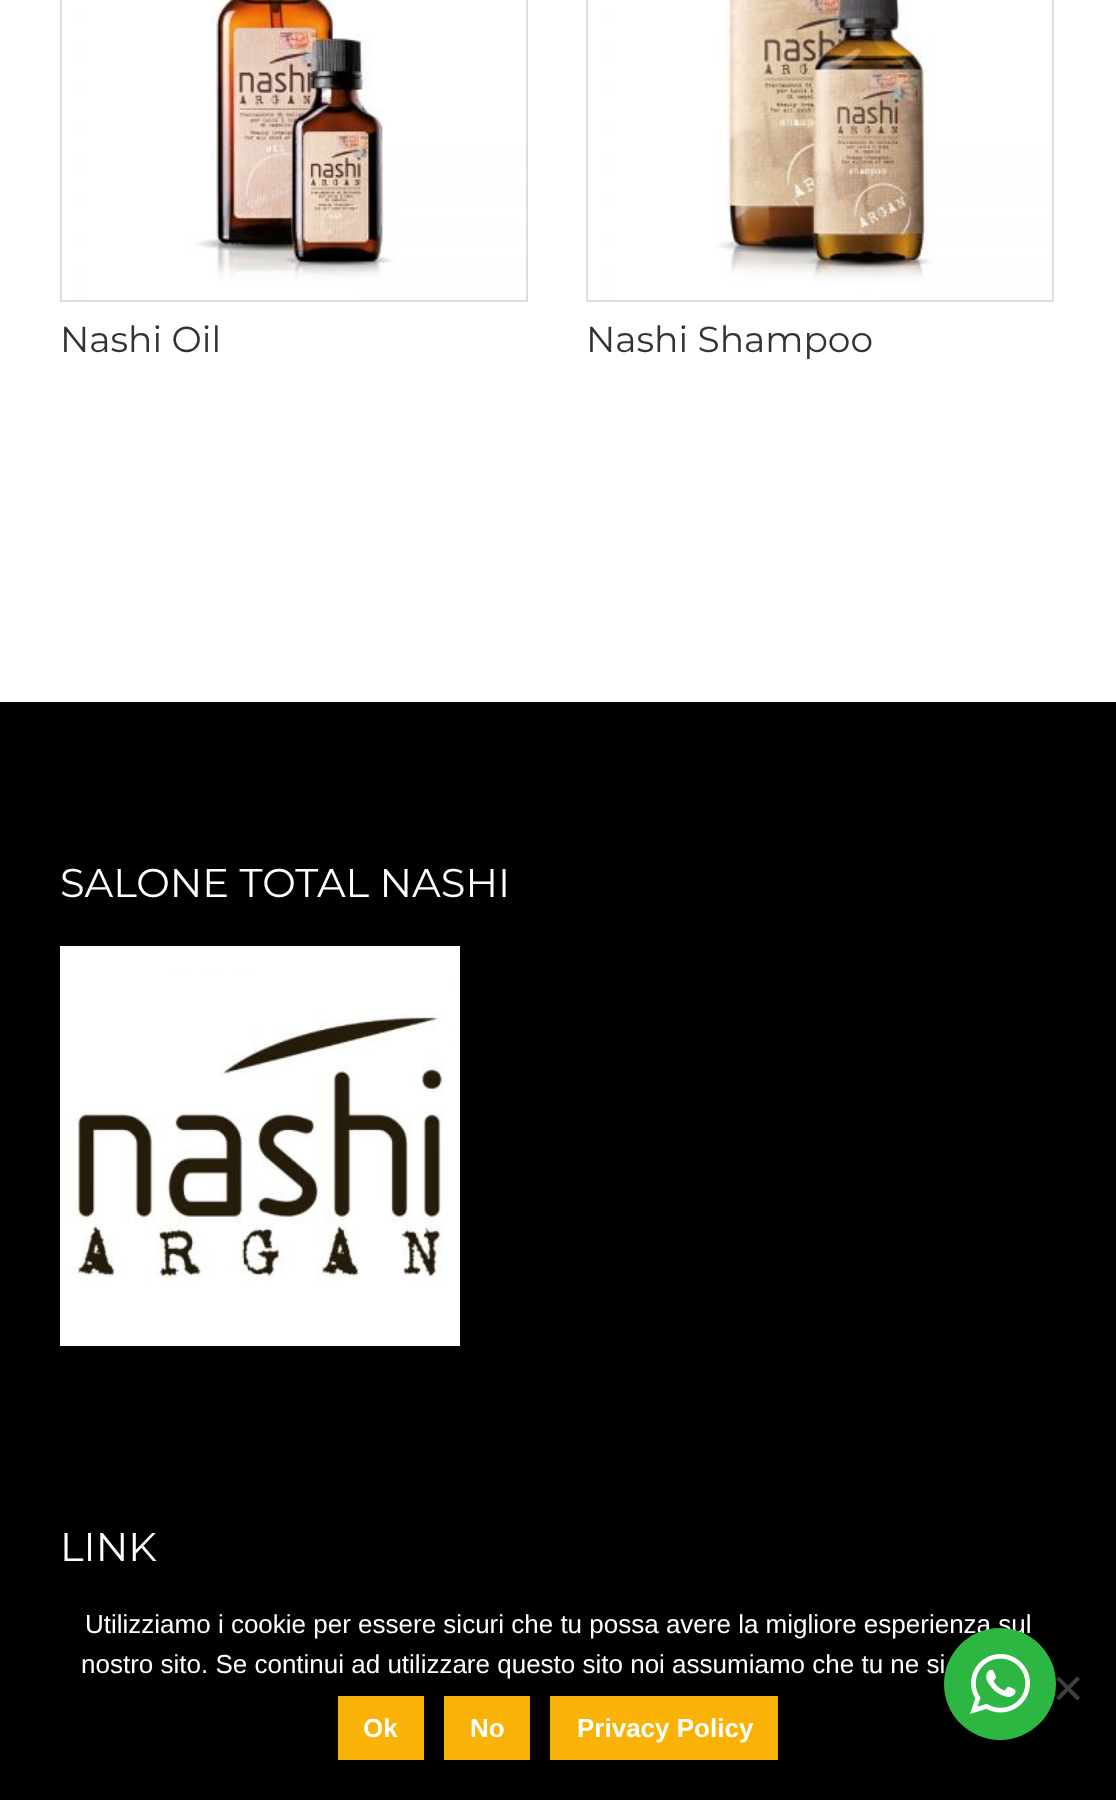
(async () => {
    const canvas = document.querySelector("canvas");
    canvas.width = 1116;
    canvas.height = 1800;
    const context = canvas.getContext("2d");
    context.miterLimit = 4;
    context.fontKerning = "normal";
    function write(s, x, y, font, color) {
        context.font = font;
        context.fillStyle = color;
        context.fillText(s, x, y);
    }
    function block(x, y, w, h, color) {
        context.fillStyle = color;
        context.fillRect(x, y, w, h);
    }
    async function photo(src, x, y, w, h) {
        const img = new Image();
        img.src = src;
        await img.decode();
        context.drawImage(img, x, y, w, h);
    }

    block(0, 0, 1116, 1800, "rgb(255, 255, 255)");
    context.strokeStyle = "rgb(221, 221, 221)";
    context.lineWidth = 2;
    context.strokeRect(61, -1, 466, 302);
    await photo("media/1.png", 62, 0, 464, 300);
    write("Nashi Oil", 60, 352, "36px Montserrat", "rgb(51, 51, 51)");
    context.strokeRect(587, -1, 466, 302);
    await photo("media/2.png", 588, 0, 464, 300);
    write("Nashi Shampoo", 586, 352, "36px Montserrat", "rgb(51, 51, 51)");
    block(0, 702, 1116, 1098, "rgb(0, 0, 0)");
    write("SALONE TOTAL NASHI", 60, 897, "40px Montserrat", "rgb(255, 255, 255)");
    await photo("media/3.png", 60, 946, 400, 400);
    write("LINK", 60, 1561, "40px Montserrat", "rgb(255, 255, 255)");
    context.fillStyle = "rgb(64, 64, 64)";
    context.beginPath();
    context.moveTo(1077, 1676.5);
    context.lineTo(1080, 1679);
    context.lineTo(1059, 1700.5);
    context.lineTo(1056, 1697.5);
    context.closePath();
    context.fill();
    context.beginPath();
    context.moveTo(1056, 1679);
    context.lineTo(1059, 1676.5);
    context.lineTo(1080, 1697.5);
    context.lineTo(1077, 1700.5);
    context.closePath();
    context.fill();
    context.fillStyle = "rgba(0, 0, 0, 0.14)";
    context.filter = "blur(8px)";
    context.beginPath();
    context.roundRect(940, 1636, 120, 120, 60);
    context.fill();
    context.filter = "none";
    write("Utilizziamo i cookie per essere sicuri che tu possa avere la migliore esperienza sul", 85, 1633, "26px Liberation Sans", "rgb(255, 255, 255)");
    context.fillStyle = "rgb(45, 183, 66)";
    context.beginPath();
    context.arc(1000, 1684, 56, 0, Math.PI * 2);
    context.fill();
    await photo("media/4.png", 970, 1654, 60, 60);
    write("nostro sito. Se continui ad utilizzare questo sito noi assumiamo che tu ne si", 81, 1673, "26px Liberation Sans", "rgb(255, 255, 255)");
    block(338, 1696, 86, 64, "rgb(250, 178, 7)");
    write("Ok", 363, 1737, "bold 26px Liberation Sans", "rgb(255, 255, 255)");
    block(444, 1696, 86, 64, "rgb(250, 178, 7)");
    write("No", 470, 1737, "bold 26px Liberation Sans", "rgb(255, 255, 255)");
    block(550, 1696, 228, 64, "rgb(250, 178, 7)");
    write("Privacy Policy", 577, 1737, "bold 26px Liberation Sans", "rgb(255, 255, 255)");
})();
